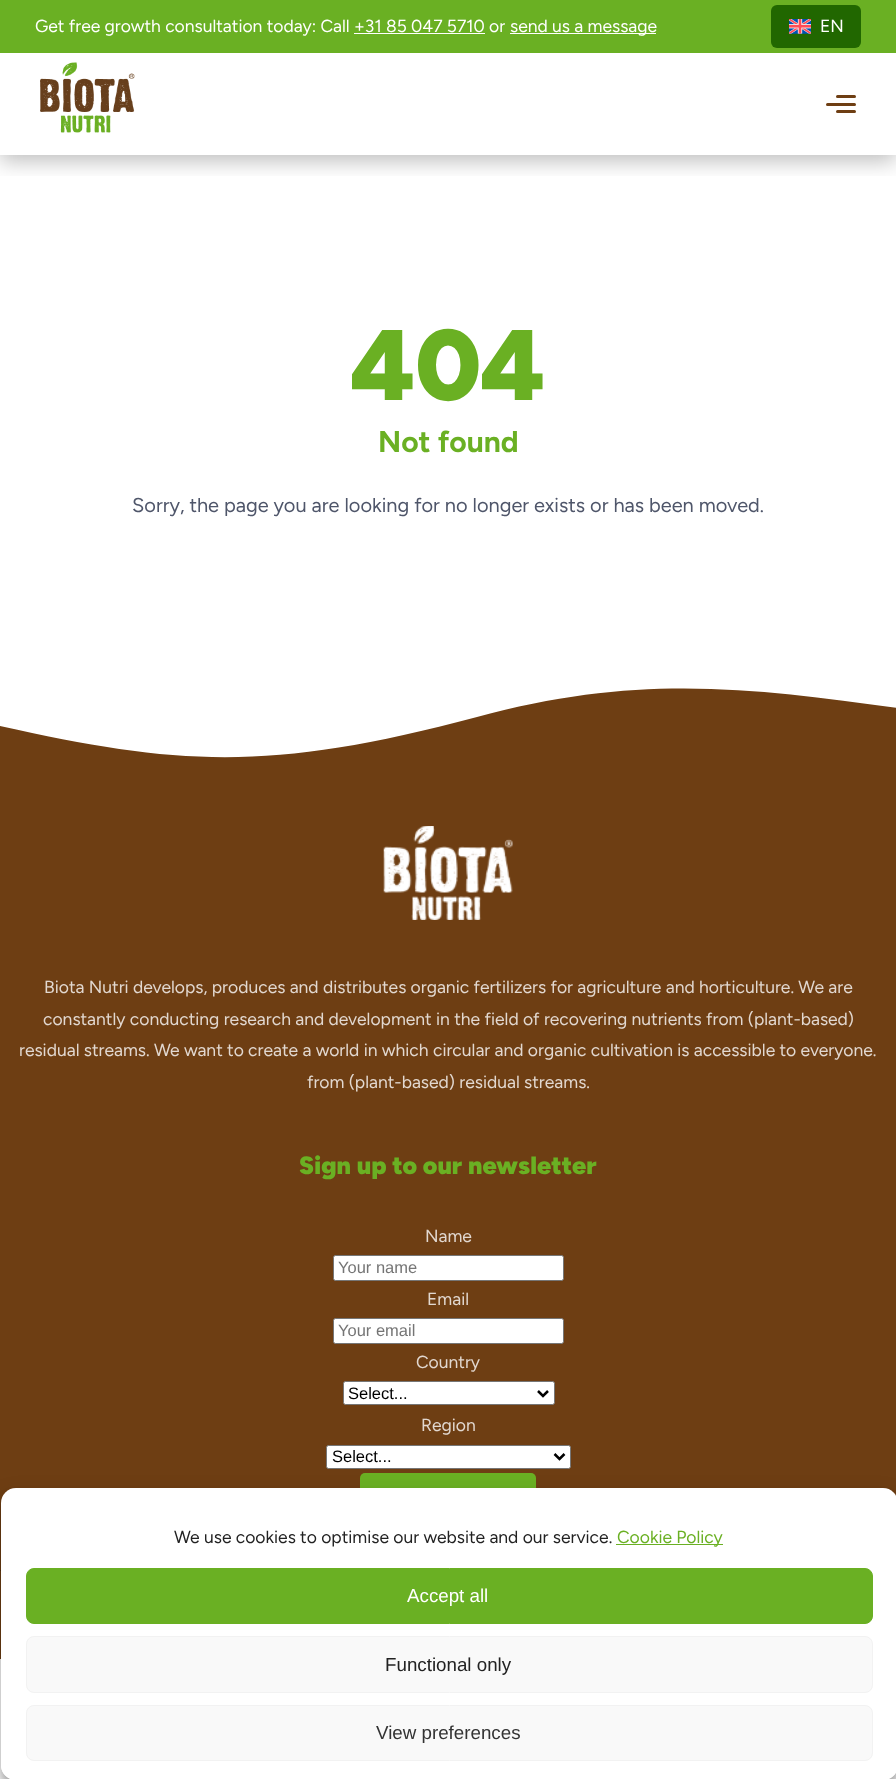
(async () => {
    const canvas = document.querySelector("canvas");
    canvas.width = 896;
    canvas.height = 1779;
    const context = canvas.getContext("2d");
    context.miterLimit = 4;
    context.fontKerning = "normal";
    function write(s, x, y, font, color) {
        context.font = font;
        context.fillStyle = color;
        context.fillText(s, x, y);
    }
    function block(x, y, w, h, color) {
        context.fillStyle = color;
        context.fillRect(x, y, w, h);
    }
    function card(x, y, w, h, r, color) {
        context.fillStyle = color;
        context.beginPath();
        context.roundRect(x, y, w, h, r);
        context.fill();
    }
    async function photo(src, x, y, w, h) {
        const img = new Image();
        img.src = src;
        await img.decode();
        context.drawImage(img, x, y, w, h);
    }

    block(0, 0, 896, 1779, "rgb(255, 255, 255)");
    context.save();
    context.beginPath();
    context.rect(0, 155, 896, 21);
    context.clip();
    context.fillStyle = "rgba(0, 0, 0, 0.26)";
    context.filter = "blur(10.5px)";
    context.beginPath();
    context.rect(0, 6, 896, 155);
    context.fill();
    context.filter = "none";
    context.restore();
    block(0, 0, 896, 53, "rgb(106, 176, 35)");
    write("Get free growth consultation today: Call +31 85 047 5710 or", 35, 32, "17.5px Figtree", "rgb(255, 255, 255)");
    block(510, 33, 146, 1, "rgb(255, 255, 255)");
    write("send us a message", 510, 32, "17.5px Figtree", "rgb(255, 255, 255)");
    block(354, 33, 131, 1, "rgb(255, 255, 255)");
    card(771, 5, 90, 43, 6, "rgb(33, 103, 0)");
    await photo("media/1.png", 789, 19, 22, 15);
    write("EN", 820, 32, "17.5px Figtree", "rgb(255, 255, 255)");
    await photo("media/2.png", 40, 62, 95, 71);
    card(836, 95, 20, 3, 1.5, "rgb(110, 62, 19)");
    card(826, 103, 30, 3, 1.5, "rgb(110, 62, 19)");
    card(836, 110, 20, 3, 1.5, "rgb(110, 62, 19)");
    write("404", 351, 400, "900 100px Figtree", "rgb(106, 176, 35)");
    write("Not found", 378, 452, "bold 30px Figtree", "rgb(106, 176, 35)");
    write("Sorry, the page you are looking for no longer exists or has been moved.", 132, 512, "20px Figtree", "rgb(79, 86, 106)");
    context.save();
    context.beginPath();
    context.rect(0, 686, 896, 140);
    context.clip();
    context.fillStyle = "rgb(110, 62, 19)";
    context.beginPath();
    context.moveTo(0, 726);
    context.bezierCurveTo(179, 766, 271, 772, 477, 717);
    context.bezierCurveTo(650, 669, 774, 692, 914, 710);
    context.bezierCurveTo(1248, 747, 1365, 778, 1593, 726);
    context.lineTo(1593, 862);
    context.lineTo(0, 862);
    context.closePath();
    context.fill();
    context.restore();
    block(0, 826, 896, 833, "rgb(110, 62, 19)");
    block(0, 1570, 1, 1, "rgb(88, 50, 15)");
    await photo("media/3.png", 383, 826, 130, 94);
    write("Biota Nutri develops, produces and distributes organic fertilizers for agriculture and horticulture. We are", 44, 993, "17.5px Figtree", "rgb(226, 216, 208)");
    write("constantly conducting research and development in the field of recovering nutrients from (plant-based)", 43, 1025, "17.5px Figtree", "rgb(226, 216, 208)");
    write("residual streams. We want to create a world in which circular and organic cultivation is accessible to everyone.", 19, 1056, "17.5px Figtree", "rgb(226, 216, 208)");
    write("from (plant-based) residual streams.", 307, 1088, "17.5px Figtree", "rgb(226, 216, 208)");
    write("Sign up to our newsletter", 299, 1174, "900 25px Figtree", "rgb(106, 176, 35)");
    write("Name", 425, 1242, "17.5px Figtree", "rgb(226, 216, 208)");
    context.fillStyle = "rgb(255, 255, 255)";
    context.beginPath();
    context.roundRect(333.5, 1255.5, 230, 25, 2);
    context.fill();
    context.strokeStyle = "rgb(118, 118, 118)";
    context.stroke();
    write("Your name", 338, 1273, "16.5px Liberation Sans", "rgb(117, 117, 117)");
    write("Email", 427, 1305, "17.5px Figtree", "rgb(226, 216, 208)");
    context.fillStyle = "rgb(255, 255, 255)";
    context.beginPath();
    context.roundRect(333.5, 1318.5, 230, 25, 2);
    context.fill();
    context.stroke();
    write("Your email", 338, 1336, "16.5px Liberation Sans", "rgb(117, 117, 117)");
    write("Country", 416, 1368, "17.5px Figtree", "rgb(226, 216, 208)");
    context.fillStyle = "rgb(255, 255, 255)";
    context.beginPath();
    context.roundRect(343.5, 1381.5, 211, 23, 2);
    context.fill();
    context.stroke();
    context.beginPath();
    context.moveTo(538, 1391);
    context.lineTo(543, 1396);
    context.lineTo(548, 1391);
    context.strokeStyle = "rgb(0, 0, 0)";
    context.lineWidth = 2.5;
    context.stroke();
    write("Select...", 348, 1399, "16.5px Liberation Sans", "rgb(0, 0, 0)");
    write("Region", 421, 1431, "17.5px Figtree", "rgb(226, 216, 208)");
    context.fillStyle = "rgb(255, 255, 255)";
    context.beginPath();
    context.roundRect(326.5, 1445.5, 244, 23, 2);
    context.fill();
    context.strokeStyle = "rgb(118, 118, 118)";
    context.lineWidth = 1;
    context.stroke();
    context.beginPath();
    context.moveTo(554.5, 1454);
    context.lineTo(559.5, 1459);
    context.lineTo(564.5, 1454);
    context.strokeStyle = "rgb(0, 0, 0)";
    context.lineWidth = 2.5;
    context.stroke();
    write("Select...", 332, 1462, "16.5px Liberation Sans", "rgb(0, 0, 0)");
    card(360, 1473, 176, 62, 5, "rgb(106, 176, 35)");
    context.save();
    context.beginPath();
    context.moveTo(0, 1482);
    context.lineTo(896, 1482);
    context.lineTo(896, 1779);
    context.lineTo(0, 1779);
    context.closePath();
    context.moveTo(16, 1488);
    context.lineTo(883, 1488);
    context.bezierCurveTo(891.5, 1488, 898, 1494.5, 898, 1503);
    context.lineTo(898, 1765);
    context.bezierCurveTo(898, 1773.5, 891.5, 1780, 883, 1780);
    context.lineTo(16, 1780);
    context.bezierCurveTo(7.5, 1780, 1, 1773.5, 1, 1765);
    context.lineTo(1, 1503);
    context.bezierCurveTo(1, 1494.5, 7.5, 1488, 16, 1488);
    context.closePath();
    context.clip("evenodd");
    context.fillStyle = "rgba(0, 0, 0, 0.23)";
    context.filter = "blur(4px)";
    context.beginPath();
    context.roundRect(1, 1495, 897, 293, 15);
    context.fill();
    context.filter = "none";
    context.restore();
    context.save();
    context.beginPath();
    context.moveTo(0, 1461);
    context.lineTo(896, 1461);
    context.lineTo(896, 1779);
    context.lineTo(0, 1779);
    context.closePath();
    context.moveTo(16, 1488);
    context.lineTo(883, 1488);
    context.bezierCurveTo(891.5, 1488, 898, 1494.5, 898, 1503);
    context.lineTo(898, 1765);
    context.bezierCurveTo(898, 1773.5, 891.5, 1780, 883, 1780);
    context.lineTo(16, 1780);
    context.bezierCurveTo(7.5, 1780, 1, 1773.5, 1, 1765);
    context.lineTo(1, 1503);
    context.bezierCurveTo(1, 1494.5, 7.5, 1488, 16, 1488);
    context.closePath();
    context.clip("evenodd");
    context.fillStyle = "rgba(0, 0, 0, 0.19)";
    context.filter = "blur(12.5px)";
    context.beginPath();
    context.roundRect(1, 1500, 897, 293, 15);
    context.fill();
    context.filter = "none";
    context.restore();
    card(1, 1488, 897, 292, 15, "rgb(255, 255, 255)");
    write("We use cookies to optimise our website and our service.", 174, 1543, "17.5px Figtree", "rgb(34, 34, 34)");
    block(616, 1544, 107, 1, "rgb(106, 176, 35)");
    write("Cookie Policy", 617, 1543, "17.5px Figtree", "rgb(106, 176, 35)");
    context.beginPath();
    context.roundRect(26.5, 1568.5, 846, 55, 7.5);
    context.fill();
    context.strokeStyle = "rgb(106, 176, 35)";
    context.lineWidth = 1;
    context.stroke();
    write("Accept all", 407, 1602, "18.75px Liberation Sans", "rgb(255, 255, 255)");
    context.fillStyle = "rgb(249, 249, 249)";
    context.beginPath();
    context.roundRect(26.5, 1636.5, 846, 56, 7.5);
    context.fill();
    context.strokeStyle = "rgb(242, 242, 242)";
    context.stroke();
    write("Functional only", 385, 1671, "18.75px Liberation Sans", "rgb(34, 34, 34)");
    context.fillStyle = "rgb(249, 249, 249)";
    context.beginPath();
    context.roundRect(26.5, 1705.5, 846, 55, 7.5);
    context.fill();
    context.stroke();
    write("View preferences", 376, 1739, "18.75px Liberation Sans", "rgb(51, 51, 51)");
})();
